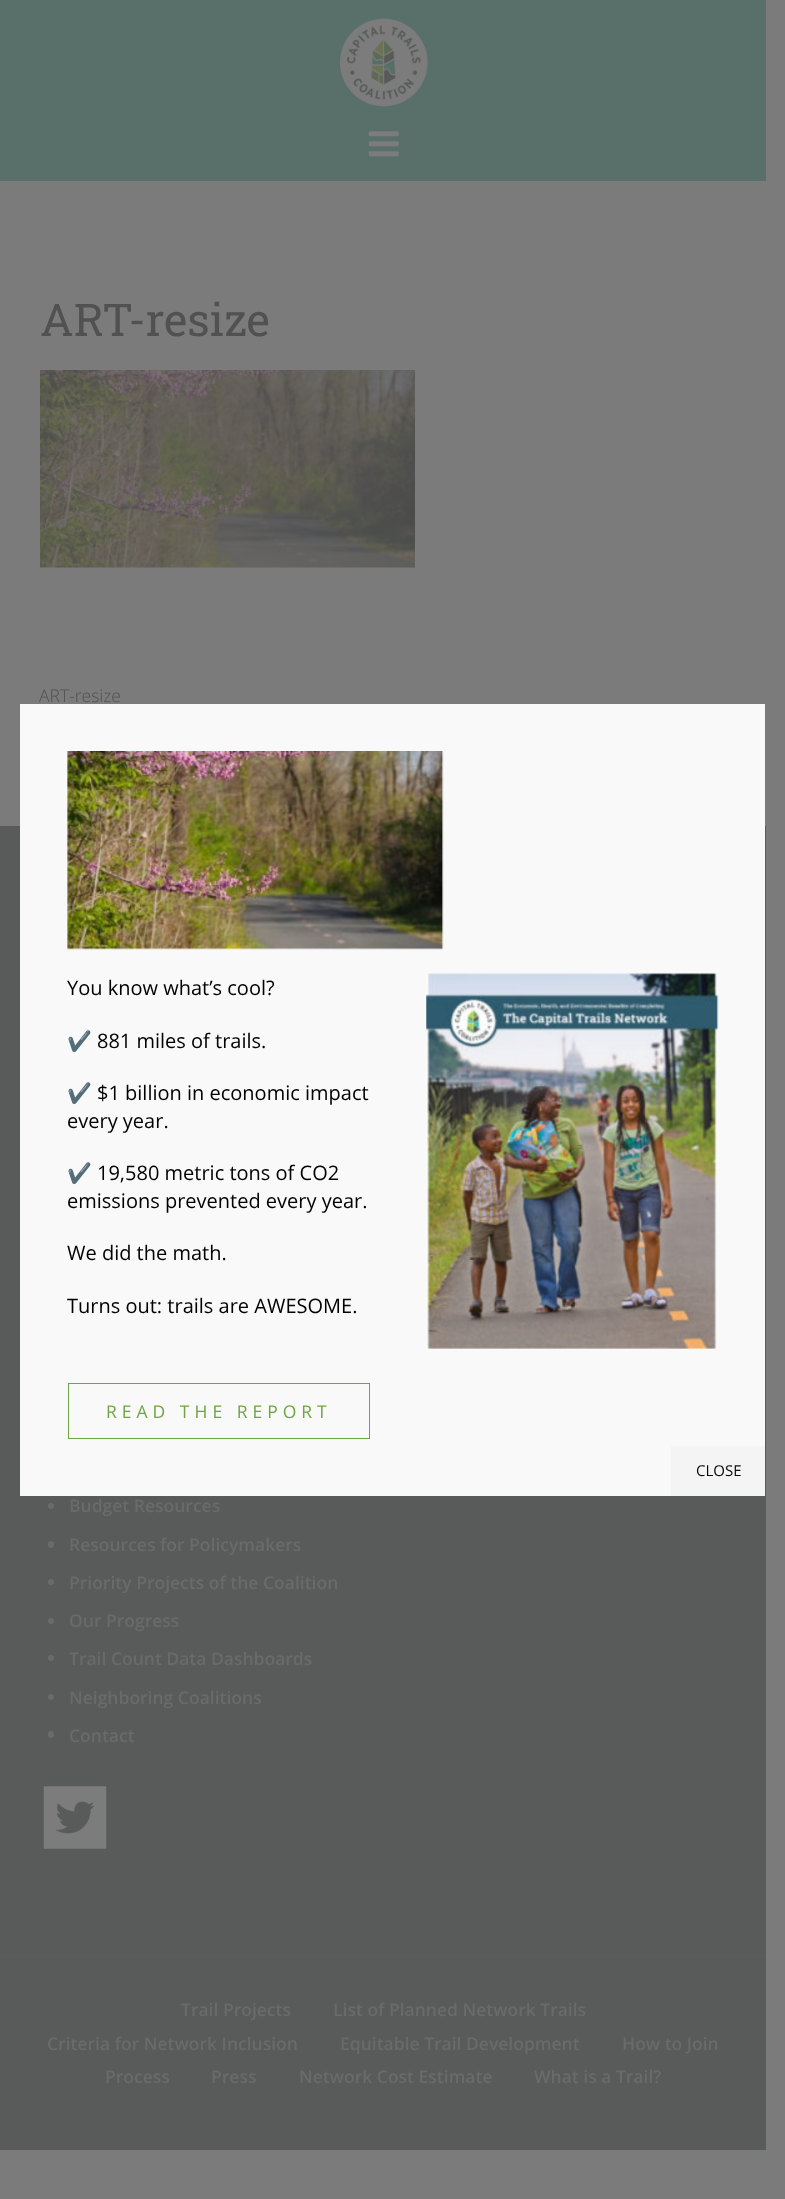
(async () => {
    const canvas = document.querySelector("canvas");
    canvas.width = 785;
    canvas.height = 2199;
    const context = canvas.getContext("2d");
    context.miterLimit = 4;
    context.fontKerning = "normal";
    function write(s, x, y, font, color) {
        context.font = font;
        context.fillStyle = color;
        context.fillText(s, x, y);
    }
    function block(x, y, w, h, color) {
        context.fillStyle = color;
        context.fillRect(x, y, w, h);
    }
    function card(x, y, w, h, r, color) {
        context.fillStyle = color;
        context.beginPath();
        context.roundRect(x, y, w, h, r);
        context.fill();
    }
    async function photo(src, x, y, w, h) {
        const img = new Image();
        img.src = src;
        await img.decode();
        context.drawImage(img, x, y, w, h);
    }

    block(0, 0, 785, 2199, "rgb(122, 123, 122)");
    block(0, 0, 766, 180, "rgb(89, 111, 105)");
    block(0, 180, 766, 1, "rgb(92, 112, 107)");
    await photo("media/1.png", 340, 18, 88, 89);
    await photo("media/2.png", 368, 131, 31, 26);
    write("ART-resize", 40, 336, "45px Roboto Slab", "rgb(81, 81, 81)");
    await photo("media/3.png", 40, 370, 375, 198);
    write("ART-resize", 39, 702, "300 17.5px Open Sans", "rgb(81, 81, 81)");
    block(0, 826, 766, 1129, "rgb(88, 91, 90)");
    block(0, 1955, 766, 1, "rgb(91, 93, 93)");
    context.fillStyle = "rgb(105, 107, 107)";
    context.beginPath();
    context.arc(51, 1506, 3, 0, Math.PI * 2);
    context.fill();
    write("Budget Resources", 69, 1512, "600 17.5px Open Sans", "rgb(105, 107, 107)");
    card(48, 1541, 6, 7, 3, "rgb(105, 107, 107)");
    write("Resources for Policymakers", 69, 1551, "600 17.5px Open Sans", "rgb(105, 107, 107)");
    context.beginPath();
    context.arc(51, 1582, 3, 0, Math.PI * 2);
    context.fill();
    write("Priority Projects of the Coalition", 69, 1589, "600 17.5px Open Sans", "rgb(105, 107, 107)");
    context.beginPath();
    context.arc(51, 1621, 3, 0, Math.PI * 2);
    context.fill();
    write("Our Progress", 69, 1627, "600 17.5px Open Sans", "rgb(105, 107, 107)");
    context.beginPath();
    context.arc(51, 1658, 3, 0, Math.PI * 2);
    context.fill();
    write("Trail Count Data Dashboards", 69, 1665, "600 17.5px Open Sans", "rgb(105, 107, 107)");
    context.beginPath();
    context.arc(51, 1697, 3, 0, Math.PI * 2);
    context.fill();
    write("Neighboring Coalitions", 69, 1704, "600 17.5px Open Sans", "rgb(105, 107, 107)");
    card(48, 1731, 6, 7, 3, "rgb(105, 107, 107)");
    write("Contact", 69, 1742, "600 17.5px Open Sans", "rgb(105, 107, 107)");
    await photo("media/4.png", 43, 1786, 64, 63);
    block(0, 1956, 766, 194, "rgb(88, 91, 90)");
    write("Trail Projects", 181, 2016, "600 17.5px Open Sans", "rgb(105, 107, 107)");
    write("List of Planned Network Trails", 333, 2016, "600 17.5px Open Sans", "rgb(105, 107, 107)");
    write("Criteria for Network Inclusion", 47, 2050, "600 17.5px Open Sans", "rgb(105, 107, 107)");
    write("Equitable Trail Development", 340, 2050, "600 17.5px Open Sans", "rgb(105, 107, 107)");
    write("How to Join", 622, 2050, "600 17.5px Open Sans", "rgb(105, 107, 107)");
    write("Process", 105, 2083, "600 17.5px Open Sans", "rgb(105, 107, 107)");
    write("Press", 211, 2083, "600 17.5px Open Sans", "rgb(105, 107, 107)");
    write("Network Cost Estimate", 299, 2083, "600 17.5px Open Sans", "rgb(105, 107, 107)");
    write("What is a Trail?", 534, 2083, "600 17.5px Open Sans", "rgb(105, 107, 107)");
    block(20, 704, 745, 792, "rgb(249, 249, 249)");
    await photo("media/5.png", 67, 751, 377, 199);
    write("You know what’s cool?", 67, 995, "20px Open Sans", "rgb(0, 0, 0)");
    await photo("media/6.png", 426, 973, 293, 376);
    write("✔️", 67, 1048, "20px Noto Color Emoji", "rgb(0, 0, 0)");
    write("881 miles of trails.", 97, 1048, "20px Open Sans", "rgb(0, 0, 0)");
    write("✔️", 67, 1100, "20px Noto Color Emoji", "rgb(0, 0, 0)");
    write("$1 billion in economic impact", 97, 1100, "20px Open Sans", "rgb(0, 0, 0)");
    write("every year.", 67, 1128, "20px Open Sans", "rgb(0, 0, 0)");
    write("✔️", 67, 1180, "20px Noto Color Emoji", "rgb(0, 0, 0)");
    write("19,580 metric tons of CO2", 97, 1180, "20px Open Sans", "rgb(0, 0, 0)");
    write("emissions prevented every year.", 67, 1208, "20px Open Sans", "rgb(0, 0, 0)");
    write("We did the math.", 67, 1260, "20px Open Sans", "rgb(0, 0, 0)");
    write("Turns out: trails are AWESOME.", 67, 1313, "20px Open Sans", "rgb(0, 0, 0)");
    context.strokeStyle = "rgb(110, 165, 66)";
    context.strokeRect(68.5, 1383.5, 301, 55);
    context.letterSpacing = "5px";
    write("READ THE REPORT", 106, 1418, "17.5px Open Sans", "rgb(110, 165, 66)");
    block(671, 1446, 94, 50, "rgb(244, 244, 244)");
    context.letterSpacing = "0px";
    write("CLOSE", 696, 1476, "15px Open Sans", "rgb(10, 10, 10)");
})();
